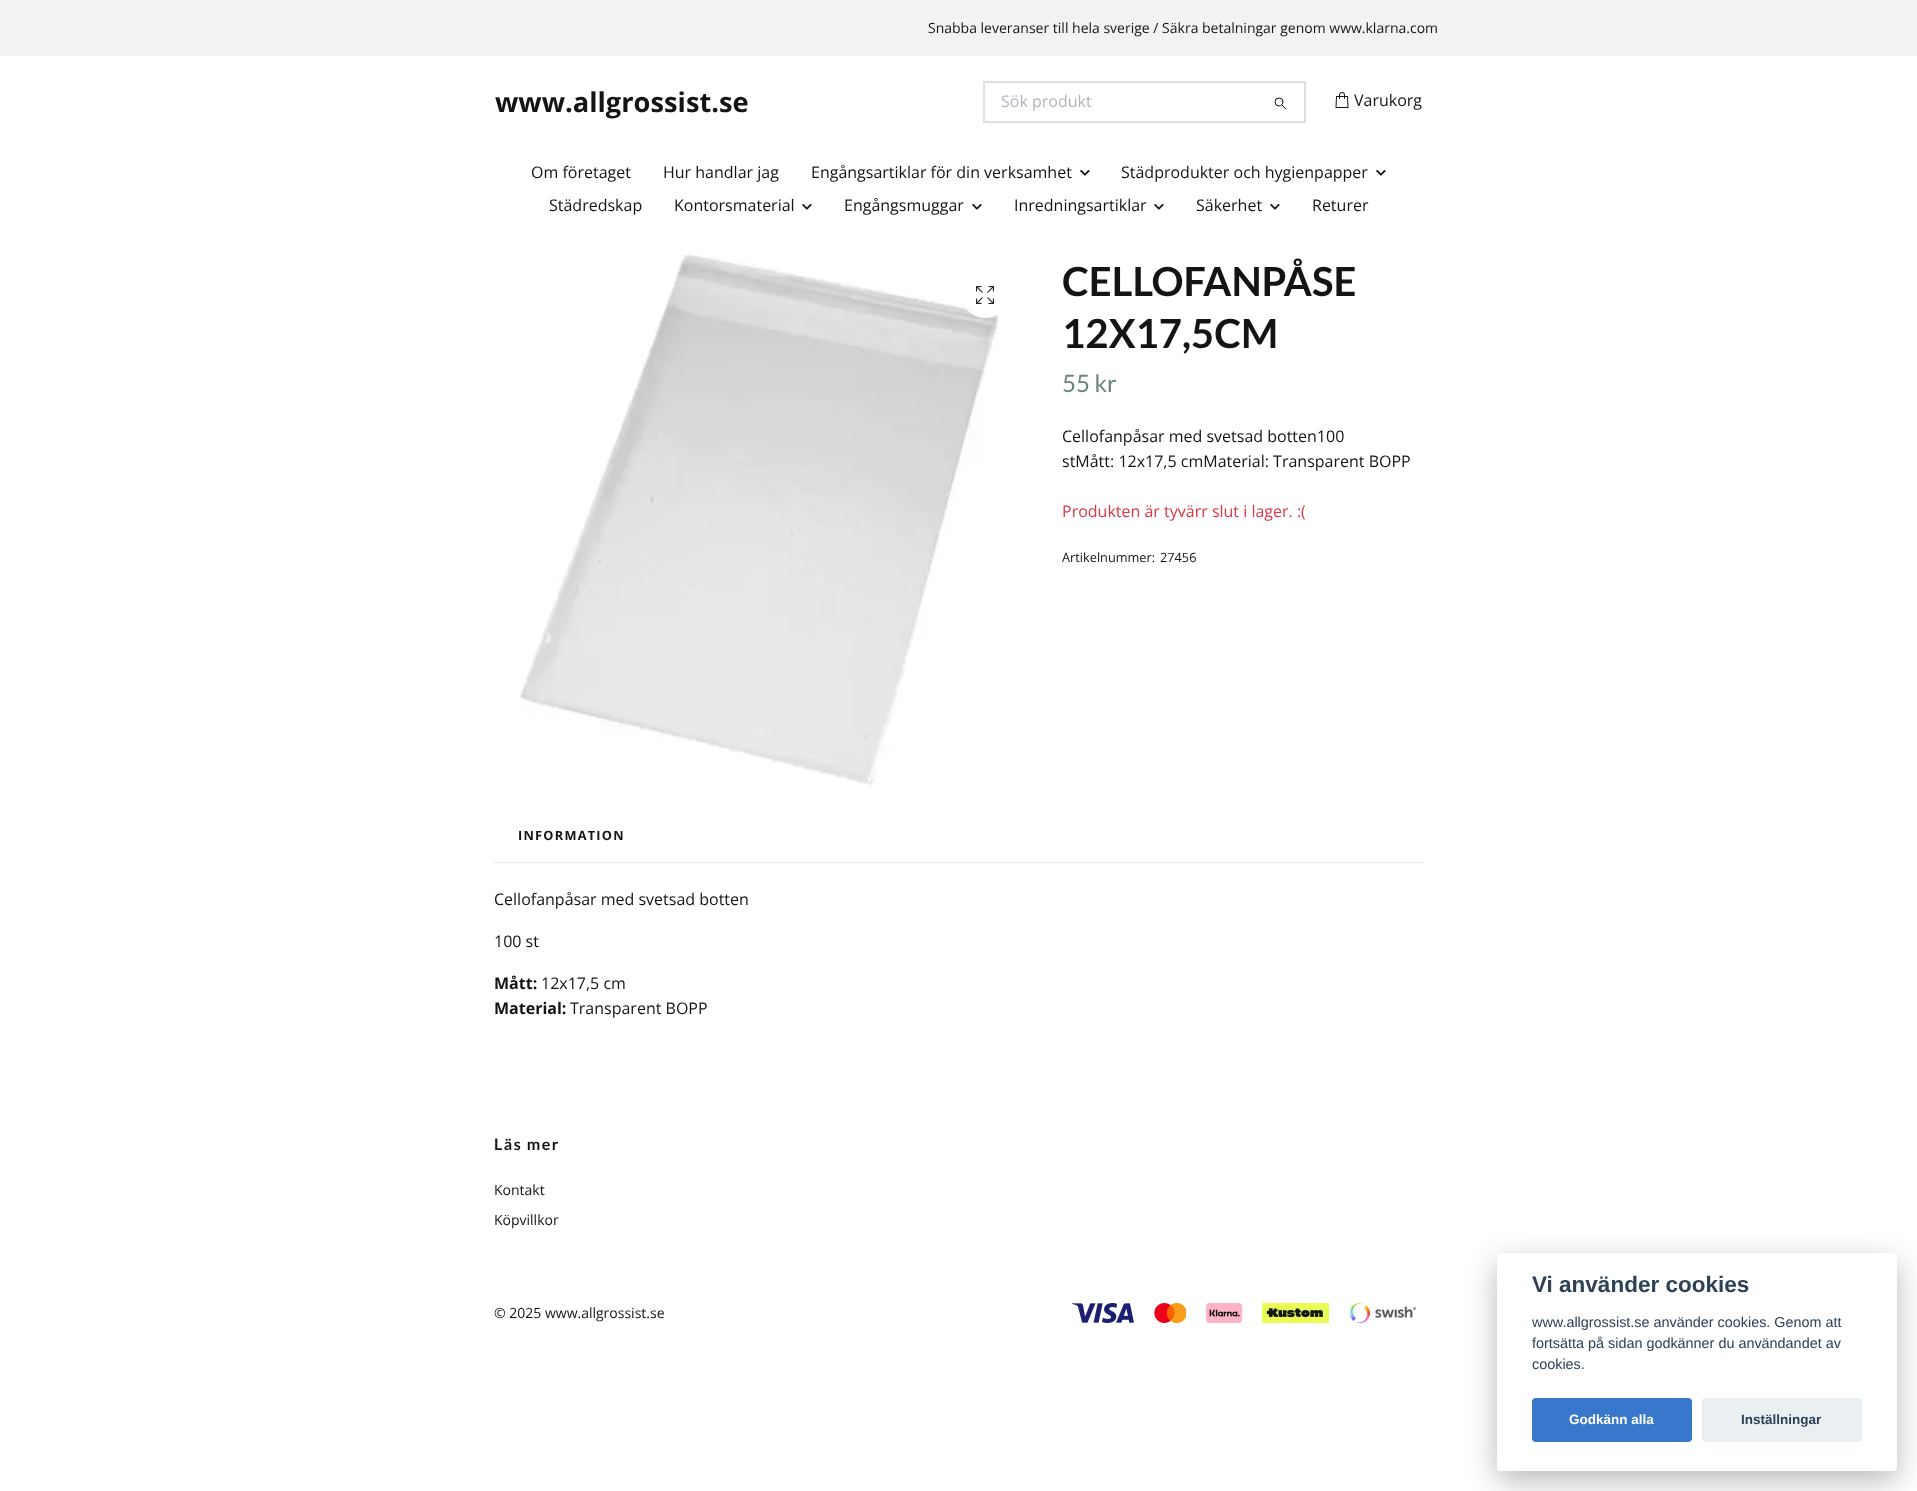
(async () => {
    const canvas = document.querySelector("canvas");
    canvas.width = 1917;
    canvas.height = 1491;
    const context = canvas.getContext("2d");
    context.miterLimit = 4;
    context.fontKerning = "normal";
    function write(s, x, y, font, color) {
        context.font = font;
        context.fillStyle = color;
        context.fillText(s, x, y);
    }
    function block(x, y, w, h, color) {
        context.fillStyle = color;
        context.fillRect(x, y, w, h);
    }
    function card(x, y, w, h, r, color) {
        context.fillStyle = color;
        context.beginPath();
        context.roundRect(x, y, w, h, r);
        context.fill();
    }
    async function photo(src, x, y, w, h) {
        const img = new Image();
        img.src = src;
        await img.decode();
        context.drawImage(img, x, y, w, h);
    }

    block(0, 0, 1917, 1491, "rgb(255, 255, 255)");
    block(0, 0, 1917, 56, "rgb(242, 242, 242)");
    write("Snabba leveranser till hela sverige / Säkra betalningar genom www.klarna.com", 928, 33, "14px Open Sans", "rgb(20, 20, 20)");
    write("www.allgrossist.se", 495, 112, "bold 27.25px Open Sans", "rgb(20, 20, 20)");
    context.strokeStyle = "rgb(223, 223, 223)";
    context.lineWidth = 2;
    context.strokeRect(984, 82, 321, 40);
    write("Sök produkt", 1001, 107, "16px Open Sans", "rgb(173, 181, 189)");
    context.beginPath();
    context.moveTo(1282, 105);
    context.lineTo(1286, 109);
    context.strokeStyle = "rgb(20, 20, 20)";
    context.lineWidth = 1;
    context.lineCap = "round";
    context.lineJoin = "round";
    context.stroke();
    context.beginPath();
    context.arc(1279, 102, 4, 0, Math.PI * 2);
    context.stroke();
    await photo("media/1.png", 1335, 92, 14, 16);
    write("Varukorg", 1354, 106, "16px Open Sans", "rgb(20, 20, 20)");
    write("Om företaget", 531, 178, "16px Open Sans", "rgb(20, 20, 20)");
    write("Hur handlar jag", 663, 178, "16px Open Sans", "rgb(20, 20, 20)");
    write("Engångsartiklar för din verksamhet", 811, 178, "16px Open Sans", "rgb(20, 20, 20)");
    await photo("media/2.png", 1080, 170, 10, 6);
    write("Städprodukter och hygienpapper", 1121, 178, "16px Open Sans", "rgb(20, 20, 20)");
    await photo("media/2.png", 1376, 170, 10, 6);
    write("Städredskap", 549, 211, "16px Open Sans", "rgb(20, 20, 20)");
    write("Kontorsmaterial", 674, 211, "16px Open Sans", "rgb(20, 20, 20)");
    await photo("media/2.png", 802, 204, 10, 6);
    write("Engångsmuggar", 844, 211, "16px Open Sans", "rgb(20, 20, 20)");
    await photo("media/2.png", 972, 204, 10, 6);
    write("Inredningsartiklar", 1014, 211, "16px Open Sans", "rgb(20, 20, 20)");
    await photo("media/2.png", 1154, 204, 10, 6);
    write("Säkerhet", 1196, 211, "16px Open Sans", "rgb(20, 20, 20)");
    await photo("media/2.png", 1270, 204, 10, 6);
    write("Returer", 1312, 211, "16px Open Sans", "rgb(20, 20, 20)");
    await photo("media/3.png", 520, 255, 479, 530);
    context.fillStyle = "rgb(255, 255, 255)";
    context.beginPath();
    context.arc(985, 294, 24, 0, Math.PI * 2);
    context.fill();
    await photo("media/4.png", 976, 286, 18, 18);
    write("CELLOFANPÅSE", 1062, 296, "bold 40px Lato", "rgb(20, 20, 20)");
    write("12X17,5CM", 1062, 348, "bold 40px Lato", "rgb(20, 20, 20)");
    write("55 kr", 1062, 392, "24px Lato", "rgb(102, 133, 126)");
    write("Cellofanpåsar med svetsad botten100", 1062, 442, "16px Open Sans", "rgb(20, 20, 20)");
    write("stMått: 12x17,5 cmMaterial: Transparent BOPP", 1062, 467, "16px Open Sans", "rgb(20, 20, 20)");
    write("Produkten är tyvärr slut i lager. :(", 1062, 517, "16px Open Sans", "rgb(220, 53, 69)");
    write("Artikelnummer:", 1062, 562, "12.75px Open Sans", "rgb(20, 20, 20)");
    write("27456", 1160, 562, "12.75px Open Sans", "rgb(20, 20, 20)");
    block(494, 862, 930, 1, "rgb(233, 233, 233)");
    context.letterSpacing = "1.25px";
    write("INFORMATION", 518, 840, "bold 12.75px Open Sans", "rgb(20, 20, 20)");
    context.letterSpacing = "0px";
    write("Cellofanpåsar med svetsad botten", 494, 905, "16px Open Sans", "rgb(20, 20, 20)");
    write("100 st", 494, 947, "16px Open Sans", "rgb(20, 20, 20)");
    write("Mått:", 494, 989, "bold 16px Open Sans", "rgb(20, 20, 20)");
    write("12x17,5 cm", 541, 989, "16px Open Sans", "rgb(20, 20, 20)");
    write("Material:", 494, 1014, "bold 16px Open Sans", "rgb(20, 20, 20)");
    write("Transparent BOPP", 570, 1014, "16px Open Sans", "rgb(20, 20, 20)");
    context.letterSpacing = "1.5px";
    write("Läs mer", 494, 1150, "bold 16px Lato", "rgb(20, 20, 20)");
    context.letterSpacing = "0px";
    write("Kontakt", 494, 1195, "14px Open Sans", "rgb(20, 20, 20)");
    write("Köpvillkor", 494, 1225, "14px Open Sans", "rgb(20, 20, 20)");
    write("© 2025 www.allgrossist.se", 494, 1318, "14px Open Sans", "rgb(20, 20, 20)");
    await photo("media/5.png", 1072, 1303, 62, 20);
    await photo("media/6.png", 1154, 1303, 32, 20);
    await photo("media/7.png", 1206, 1303, 37, 20);
    await photo("media/8.png", 1262, 1303, 67, 20);
    await photo("media/9.png", 1349, 1303, 67, 20);
    context.fillStyle = "rgba(2, 2, 3, 0.28)";
    context.filter = "blur(15px)";
    context.beginPath();
    context.roundRect(1497, 1263, 400, 218, 4);
    context.fill();
    context.filter = "none";
    card(1497, 1253, 400, 218, 4, "rgb(255, 255, 255)");
    write("Vi använder cookies", 1532, 1292, "bold 22.5px Liberation Sans", "rgb(45, 65, 86)");
    write("www.allgrossist.se använder cookies. Genom att", 1532, 1327, "14.4px Liberation Sans", "rgb(45, 65, 86)");
    write("fortsätta på sidan godkänner du användandet av", 1532, 1348, "14.4px Liberation Sans", "rgb(45, 65, 86)");
    write("cookies.", 1532, 1369, "14.4px Liberation Sans", "rgb(45, 65, 86)");
    card(1532, 1398, 160, 44, 4, "rgb(56, 119, 203)");
    write("Godkänn alla", 1569, 1424, "bold 13.5px Liberation Sans", "rgb(255, 255, 255)");
    card(1702, 1398, 160, 44, 4, "rgb(234, 239, 242)");
    write("Inställningar", 1741, 1424, "bold 13.5px Liberation Sans", "rgb(45, 65, 86)");
})();
